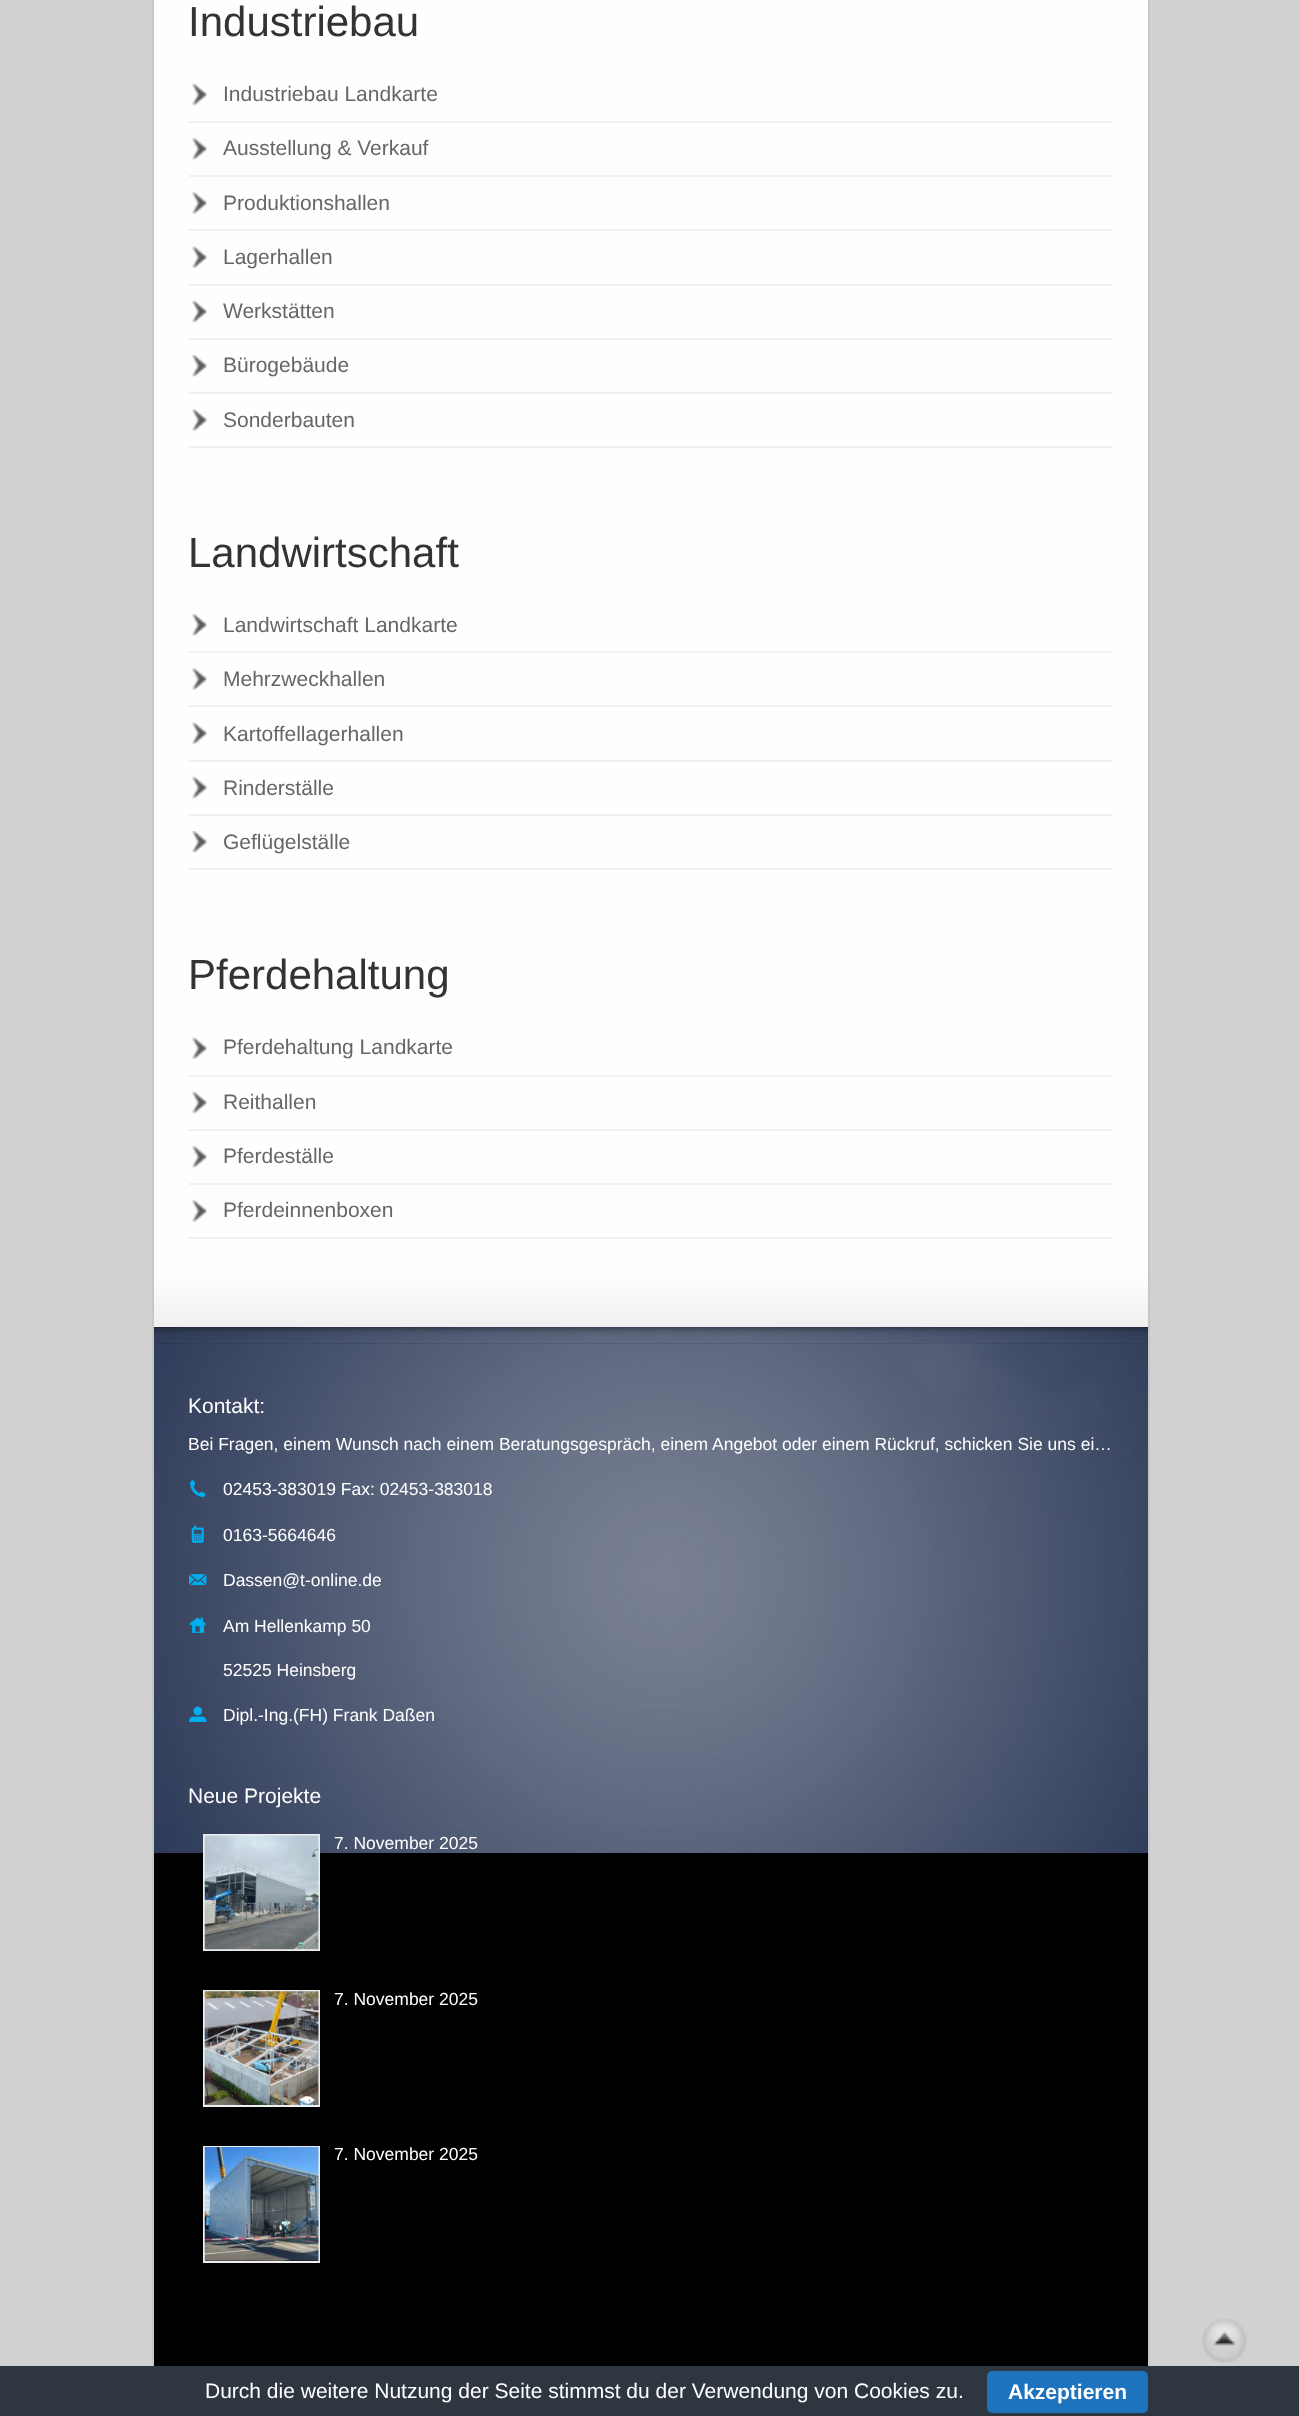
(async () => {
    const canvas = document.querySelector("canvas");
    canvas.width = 1299;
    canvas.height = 2416;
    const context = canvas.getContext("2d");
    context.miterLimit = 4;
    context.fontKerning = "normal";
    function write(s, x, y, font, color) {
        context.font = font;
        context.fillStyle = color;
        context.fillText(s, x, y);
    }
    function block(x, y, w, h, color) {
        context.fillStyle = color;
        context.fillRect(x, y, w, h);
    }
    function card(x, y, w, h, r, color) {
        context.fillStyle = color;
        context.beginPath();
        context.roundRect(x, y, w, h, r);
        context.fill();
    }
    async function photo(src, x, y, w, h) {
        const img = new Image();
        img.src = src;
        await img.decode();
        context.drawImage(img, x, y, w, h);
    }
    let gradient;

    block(0, 0, 1299, 2416, "rgb(209, 209, 209)");
    context.strokeStyle = "rgb(199, 199, 199)";
    context.lineWidth = 2;
    context.strokeRect(153, -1, 996, 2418);
    block(154, 0, 994, 1274, "rgb(254, 254, 254)");
    write("Industriebau", 188, 36, "42px Liberation Sans", "rgb(51, 51, 51)");
    await photo("media/1.png", 192, 83, 15, 23);
    block(189, 121, 924, 2, "rgb(240, 240, 240)");
    write("Industriebau Landkarte", 223, 101, "21px Liberation Sans", "rgb(102, 102, 102)");
    await photo("media/2.png", 192, 138, 15, 22);
    block(189, 175, 924, 2, "rgb(240, 240, 240)");
    write("Ausstellung & Verkauf", 223, 155, "21px Liberation Sans", "rgb(102, 102, 102)");
    await photo("media/3.png", 192, 192, 15, 22);
    block(189, 229, 924, 2, "rgb(240, 240, 240)");
    write("Produktionshallen", 223, 210, "21px Liberation Sans", "rgb(102, 102, 102)");
    await photo("media/4.png", 192, 246, 15, 22);
    block(189, 284, 924, 2, "rgb(240, 240, 240)");
    write("Lagerhallen", 223, 264, "21px Liberation Sans", "rgb(102, 102, 102)");
    await photo("media/1.png", 192, 300, 15, 23);
    block(189, 338, 924, 2, "rgb(240, 240, 240)");
    write("Werkstätten", 223, 318, "21px Liberation Sans", "rgb(102, 102, 102)");
    await photo("media/2.png", 192, 355, 15, 22);
    block(189, 392, 924, 2, "rgb(240, 240, 240)");
    write("Bürogebäude", 223, 372, "21px Liberation Sans", "rgb(102, 102, 102)");
    await photo("media/3.png", 192, 409, 15, 22);
    block(189, 446, 924, 2, "rgb(240, 240, 240)");
    write("Sonderbauten", 223, 427, "21px Liberation Sans", "rgb(102, 102, 102)");
    write("Landwirtschaft", 188, 567, "42px Liberation Sans", "rgb(51, 51, 51)");
    await photo("media/2.png", 192, 614, 15, 22);
    block(189, 651, 924, 2, "rgb(240, 240, 240)");
    write("Landwirtschaft Landkarte", 223, 632, "21px Liberation Sans", "rgb(102, 102, 102)");
    await photo("media/3.png", 192, 668, 15, 22);
    block(189, 705, 924, 2, "rgb(240, 240, 240)");
    write("Mehrzweckhallen", 223, 686, "21px Liberation Sans", "rgb(102, 102, 102)");
    await photo("media/4.png", 192, 722, 15, 22);
    block(189, 760, 924, 2, "rgb(240, 240, 240)");
    write("Kartoffellagerhallen", 223, 741, "21px Liberation Sans", "rgb(102, 102, 102)");
    await photo("media/1.png", 192, 776, 15, 23);
    block(189, 814, 924, 2, "rgb(240, 240, 240)");
    write("Rinderställe", 223, 795, "21px Liberation Sans", "rgb(102, 102, 102)");
    await photo("media/2.png", 192, 831, 15, 22);
    block(189, 868, 924, 2, "rgb(240, 240, 240)");
    write("Geflügelställe", 223, 849, "21px Liberation Sans", "rgb(102, 102, 102)");
    write("Pferdehaltung", 188, 989, "42px Liberation Sans", "rgb(51, 51, 51)");
    await photo("media/4.png", 192, 1037, 15, 22);
    block(189, 1075, 924, 2, "rgb(240, 240, 240)");
    write("Pferdehaltung Landkarte", 223, 1054, "21px Liberation Sans", "rgb(102, 102, 102)");
    await photo("media/1.png", 192, 1091, 15, 23);
    block(189, 1129, 924, 2, "rgb(240, 240, 240)");
    write("Reithallen", 223, 1109, "21px Liberation Sans", "rgb(102, 102, 102)");
    await photo("media/2.png", 192, 1146, 15, 22);
    block(189, 1183, 924, 2, "rgb(240, 240, 240)");
    write("Pferdeställe", 223, 1163, "21px Liberation Sans", "rgb(102, 102, 102)");
    await photo("media/3.png", 192, 1200, 15, 22);
    block(189, 1237, 924, 2, "rgb(240, 240, 240)");
    write("Pferdeinnenboxen", 223, 1217, "21px Liberation Sans", "rgb(102, 102, 102)");
    gradient = context.createLinearGradient(651, 1274, 651, 1327);
    gradient.addColorStop(0, "rgb(254, 254, 254)");
    gradient.addColorStop(1, "rgb(239, 239, 239)");
    context.fillStyle = gradient;
    context.fillRect(154, 1274, 994, 53);
    block(154, 1853, 994, 513, "rgb(0, 0, 0)");
    await photo("media/5.png", 154, 1327, 994, 526);
    await photo("media/6.png", 154, 1327, 994, 17);
    write("Kontakt:", 188, 1413, "21px Liberation Sans", "rgb(255, 255, 255)");
    write("Bei Fragen, einem Wunsch nach einem Beratungsgespräch, einem Angebot oder einem Rückruf, schicken Sie uns ei…", 188, 1450, "17.5px Liberation Sans", "rgb(255, 255, 255)");
    await photo("media/7.png", 190, 1480, 16, 18);
    write("02453-383019 Fax: 02453-383018", 223, 1495, "17.5px Liberation Sans", "rgb(255, 255, 255)");
    await photo("media/8.png", 191, 1525, 13, 18);
    write("0163-5664646", 223, 1541, "17.5px Liberation Sans", "rgb(255, 255, 255)");
    await photo("media/9.png", 189, 1574, 18, 12);
    write("Dassen@t-online.de", 223, 1586, "17.5px Liberation Sans", "rgb(255, 255, 255)");
    await photo("media/10.png", 189, 1617, 18, 16);
    write("Am Hellenkamp 50", 223, 1632, "17.5px Liberation Sans", "rgb(255, 255, 255)");
    write("52525 Heinsberg", 223, 1676, "17.5px Liberation Sans", "rgb(255, 255, 255)");
    await photo("media/11.png", 189, 1706, 18, 16);
    write("Dipl.-Ing.(FH) Frank Daßen", 223, 1721, "17.5px Liberation Sans", "rgb(255, 255, 255)");
    write("Neue Projekte", 188, 1803, "21px Liberation Sans", "rgb(255, 255, 255)");
    context.strokeStyle = "rgb(238, 238, 238)";
    context.strokeRect(204, 1835, 115, 115);
    await photo("media/12.png", 204, 1835, 115, 115);
    write("7. November 2025", 334, 1849, "17.5px Liberation Sans", "rgb(255, 255, 255)");
    context.strokeRect(204, 1991, 115, 115);
    await photo("media/13.png", 204, 1991, 115, 114);
    write("7. November 2025", 334, 2005, "17.5px Liberation Sans", "rgb(255, 255, 255)");
    context.strokeRect(204, 2147, 115, 115);
    await photo("media/14.png", 204, 2147, 115, 114);
    write("7. November 2025", 334, 2160, "17.5px Liberation Sans", "rgb(255, 255, 255)");
    block(0, 2366, 1299, 50, "rgb(46, 54, 63)");
    write("Durch die weitere Nutzung der Seite stimmst du der Verwendung von Cookies zu.", 205, 2398, "21px Liberation Sans", "rgb(255, 255, 255)");
    card(987, 2371, 161, 42, 5, "rgb(30, 115, 190)");
    write("Akzeptieren", 1008, 2399, "bold 21px Liberation Sans", "rgb(255, 255, 255)");
    await photo("media/15.png", 1202, 2319, 45, 44);
})();
